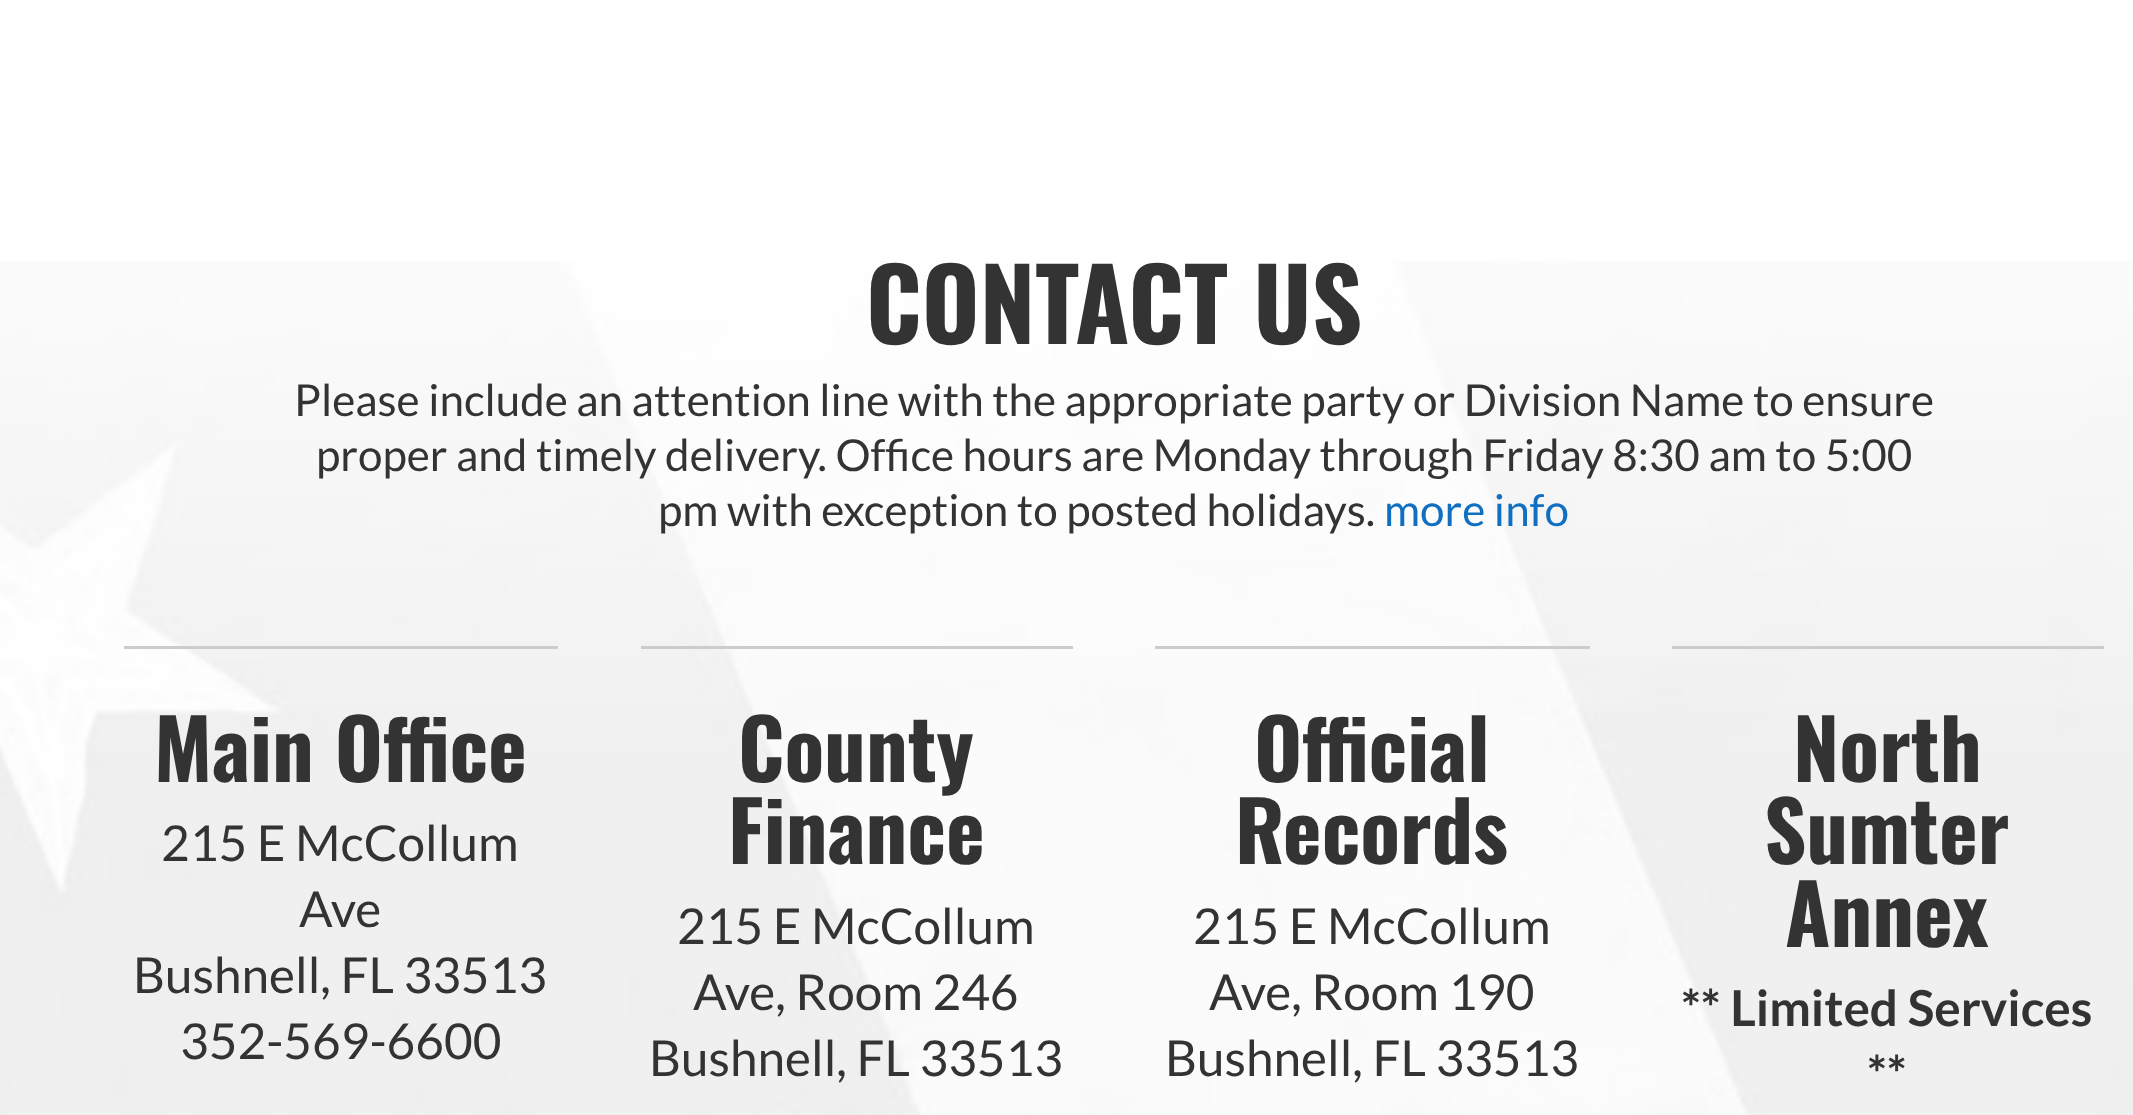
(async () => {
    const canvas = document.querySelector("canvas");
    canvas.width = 2133;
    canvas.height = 1115;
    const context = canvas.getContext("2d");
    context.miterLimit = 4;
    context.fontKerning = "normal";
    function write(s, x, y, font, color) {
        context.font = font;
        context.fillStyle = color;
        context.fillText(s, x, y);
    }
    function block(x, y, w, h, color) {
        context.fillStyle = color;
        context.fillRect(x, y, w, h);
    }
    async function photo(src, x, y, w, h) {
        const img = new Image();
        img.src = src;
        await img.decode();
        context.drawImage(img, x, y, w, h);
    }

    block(0, 0, 2133, 1115, "rgb(255, 255, 255)");
    await photo("media/1.png", 0, 261, 2133, 854);
    write("CONTACT US", 866, 344, "bold 99px Oswald", "rgb(51, 51, 51)");
    write("Please include an attention line with the appropriate party or Division Name to ensure", 294, 416, "44px Lato", "rgb(51, 51, 51)");
    write("proper and timely delivery. Office hours are Monday through Friday 8:30 am to 5:00", 316, 471, "44px Lato", "rgb(51, 51, 51)");
    write("pm with exception to posted holidays.", 658, 526, "44px Lato", "rgb(51, 51, 51)");
    write("more info", 1384, 526, "44px Lato", "rgb(17, 111, 193)");
    block(124, 646, 434, 3, "rgb(204, 204, 204)");
    write("Main Office", 154, 782, "bold 82.5px Oswald", "rgb(51, 51, 51)");
    write("215 E McCollum", 161, 861, "49.5px Lato", "rgb(51, 51, 51)");
    write("Ave", 299, 927, "49.5px Lato", "rgb(51, 51, 51)");
    write("Bushnell, FL 33513", 133, 993, "49.5px Lato", "rgb(51, 51, 51)");
    write("352-569-6600", 180, 1059, "49.5px Lato", "rgb(51, 51, 51)");
    block(641, 646, 432, 3, "rgb(204, 204, 204)");
    write("County", 738, 782, "bold 82.5px Oswald", "rgb(51, 51, 51)");
    write("Finance", 728, 864, "bold 82.5px Oswald", "rgb(51, 51, 51)");
    write("215 E McCollum", 677, 944, "49.5px Lato", "rgb(51, 51, 51)");
    write("Ave, Room 246", 693, 1010, "49.5px Lato", "rgb(51, 51, 51)");
    write("Bushnell, FL 33513", 649, 1076, "49.5px Lato", "rgb(51, 51, 51)");
    block(1155, 646, 435, 3, "rgb(204, 204, 204)");
    write("Official", 1254, 782, "bold 82.5px Oswald", "rgb(51, 51, 51)");
    write("Records", 1235, 864, "bold 82.5px Oswald", "rgb(51, 51, 51)");
    write("215 E McCollum", 1193, 944, "49.5px Lato", "rgb(51, 51, 51)");
    write("Ave, Room 190", 1209, 1010, "49.5px Lato", "rgb(51, 51, 51)");
    write("Bushnell, FL 33513", 1165, 1076, "49.5px Lato", "rgb(51, 51, 51)");
    block(1672, 646, 432, 3, "rgb(204, 204, 204)");
    write("North", 1793, 782, "bold 82.5px Oswald", "rgb(51, 51, 51)");
    write("Sumter", 1764, 864, "bold 82.5px Oswald", "rgb(51, 51, 51)");
    write("Annex", 1785, 947, "bold 82.5px Oswald", "rgb(51, 51, 51)");
    write("** Limited Services", 1681, 1026, "bold 49.5px Lato", "rgb(51, 51, 51)");
    write("**", 1867, 1092, "bold 49.5px Lato", "rgb(51, 51, 51)");
})();
